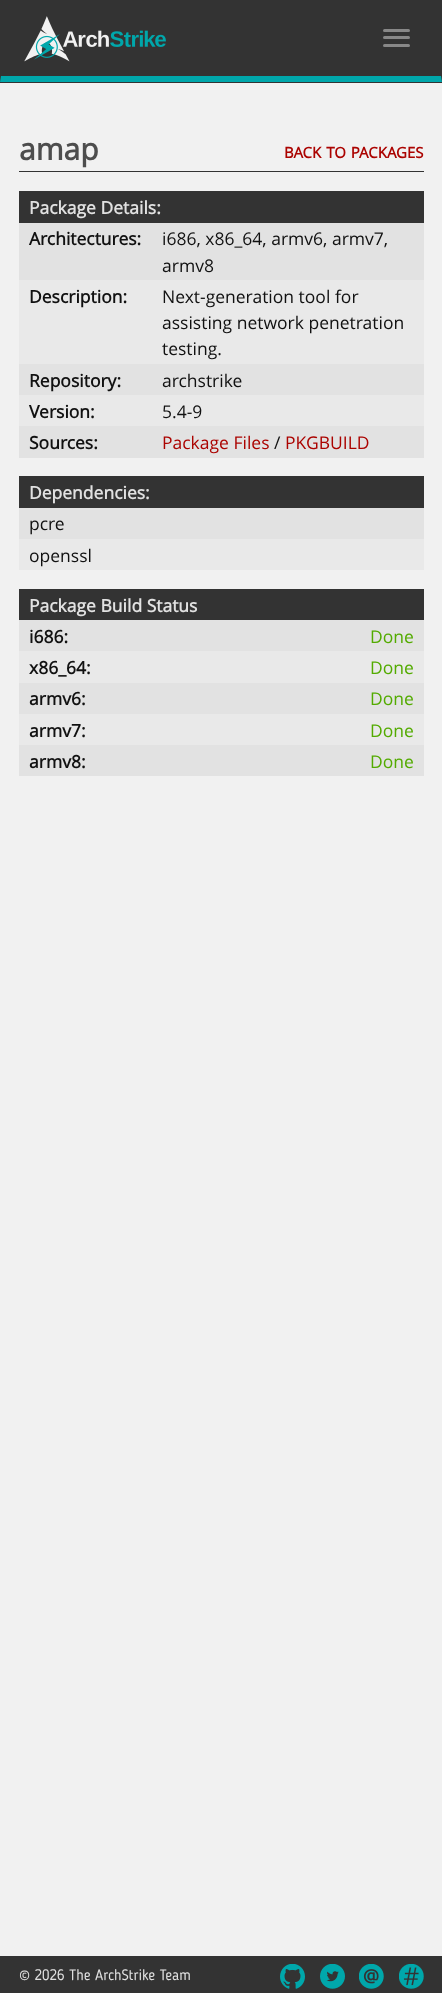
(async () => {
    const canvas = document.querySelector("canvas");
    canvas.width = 442;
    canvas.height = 1993;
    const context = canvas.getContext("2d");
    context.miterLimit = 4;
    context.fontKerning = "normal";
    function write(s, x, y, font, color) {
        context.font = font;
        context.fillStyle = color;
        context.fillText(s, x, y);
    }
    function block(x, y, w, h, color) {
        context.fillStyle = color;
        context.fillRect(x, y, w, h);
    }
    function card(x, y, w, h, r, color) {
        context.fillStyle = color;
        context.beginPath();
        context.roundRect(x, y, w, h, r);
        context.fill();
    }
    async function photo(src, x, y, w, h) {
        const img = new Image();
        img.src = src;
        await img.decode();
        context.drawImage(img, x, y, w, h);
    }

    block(0, 0, 442, 1993, "rgb(241, 241, 241)");
    block(0, 0, 442, 83, "rgb(51, 51, 51)");
    context.fillStyle = "rgb(0, 167, 171)";
    context.beginPath();
    context.moveTo(442, 82);
    context.lineTo(0, 82);
    context.lineTo(1, 76);
    context.lineTo(441, 76);
    context.closePath();
    context.fill();
    await photo("media/1.png", 24, 16, 142, 46);
    card(383, 29, 27, 3, 1.5, "rgb(136, 136, 136)");
    card(383, 36, 27, 3, 1.5, "rgb(136, 136, 136)");
    card(383, 44, 27, 3, 1.5, "rgb(136, 136, 136)");
    block(19, 171, 405, 1, "rgb(51, 51, 51)");
    write("amap", 19, 160, "bold 30px Open Sans", "rgb(77, 77, 77)");
    context.wordSpacing = "1px";
    write("BACK TO PACKAGES", 284, 158, "bold 15px Open Sans", "rgb(171, 3, 0)");
    block(19, 191, 405, 32, "rgb(51, 51, 51)");
    context.wordSpacing = "0px";
    write("Package Details:", 29, 214, "bold 17.5px Open Sans", "rgb(225, 225, 225)");
    block(19, 223, 405, 57, "rgb(226, 226, 226)");
    write("Architectures:", 29, 245, "bold 17.5px Open Sans", "rgb(17, 17, 17)");
    write("i686, x86_64, armv6, armv7,", 162, 245, "17.5px Open Sans", "rgb(17, 17, 17)");
    write("armv8", 162, 272, "17.5px Open Sans", "rgb(17, 17, 17)");
    block(19, 280, 405, 84, "rgb(233, 233, 233)");
    write("Description:", 29, 303, "bold 17.5px Open Sans", "rgb(17, 17, 17)");
    write("Next-generation tool for", 162, 303, "17.5px Open Sans", "rgb(17, 17, 17)");
    write("assisting network penetration", 162, 329, "17.5px Open Sans", "rgb(17, 17, 17)");
    write("testing.", 162, 355, "17.5px Open Sans", "rgb(17, 17, 17)");
    block(19, 364, 405, 31, "rgb(226, 226, 226)");
    write("Repository:", 29, 387, "bold 17.5px Open Sans", "rgb(17, 17, 17)");
    write("archstrike", 162, 387, "17.5px Open Sans", "rgb(17, 17, 17)");
    block(19, 395, 405, 31, "rgb(233, 233, 233)");
    write("Version:", 29, 418, "bold 17.5px Open Sans", "rgb(17, 17, 17)");
    write("5.4-9", 162, 418, "17.5px Open Sans", "rgb(17, 17, 17)");
    block(19, 426, 405, 32, "rgb(226, 226, 226)");
    write("Sources:", 29, 449, "bold 17.5px Open Sans", "rgb(17, 17, 17)");
    write("Package Files", 162, 449, "17.5px Open Sans", "rgb(171, 3, 0)");
    write("/", 274, 449, "17.5px Open Sans", "rgb(17, 17, 17)");
    write("PKGBUILD", 285, 449, "17.5px Open Sans", "rgb(171, 3, 0)");
    block(19, 476, 405, 32, "rgb(51, 51, 51)");
    write("Dependencies:", 29, 499, "bold 17.5px Open Sans", "rgb(225, 225, 225)");
    block(19, 508, 405, 31, "rgb(226, 226, 226)");
    write("pcre", 29, 530, "17.5px Open Sans", "rgb(17, 17, 17)");
    block(19, 539, 405, 31, "rgb(233, 233, 233)");
    write("openssl", 29, 562, "17.5px Open Sans", "rgb(17, 17, 17)");
    block(19, 589, 405, 31, "rgb(51, 51, 51)");
    write("Package Build Status", 29, 612, "bold 17.5px Open Sans", "rgb(225, 225, 225)");
    block(19, 620, 405, 156, "rgb(226, 226, 226)");
    write("i686:", 29, 643, "bold 17.5px Open Sans", "rgb(17, 17, 17)");
    write("Done", 370, 643, "17.5px Open Sans", "rgb(83, 171, 0)");
    block(19, 651, 405, 32, "rgb(233, 233, 233)");
    write("x86_64:", 29, 674, "bold 17.5px Open Sans", "rgb(17, 17, 17)");
    write("Done", 370, 674, "17.5px Open Sans", "rgb(83, 171, 0)");
    write("armv6:", 29, 705, "bold 17.5px Open Sans", "rgb(17, 17, 17)");
    write("Done", 370, 705, "17.5px Open Sans", "rgb(83, 171, 0)");
    block(19, 714, 405, 31, "rgb(233, 233, 233)");
    write("armv7:", 29, 737, "bold 17.5px Open Sans", "rgb(17, 17, 17)");
    write("Done", 370, 737, "17.5px Open Sans", "rgb(83, 171, 0)");
    write("armv8:", 29, 768, "bold 17.5px Open Sans", "rgb(17, 17, 17)");
    write("Done", 370, 768, "17.5px Open Sans", "rgb(83, 171, 0)");
    block(0, 1956, 442, 37, "rgb(51, 51, 51)");
    write("© 2026 The ArchStrike Team", 19, 1980, "15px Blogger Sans", "rgb(225, 225, 225)");
    await photo("media/2.png", 280, 1964, 25, 25);
    await photo("media/3.png", 320, 1964, 25, 25);
    await photo("media/4.png", 359, 1964, 25, 25);
    await photo("media/5.png", 399, 1964, 25, 25);
})();
